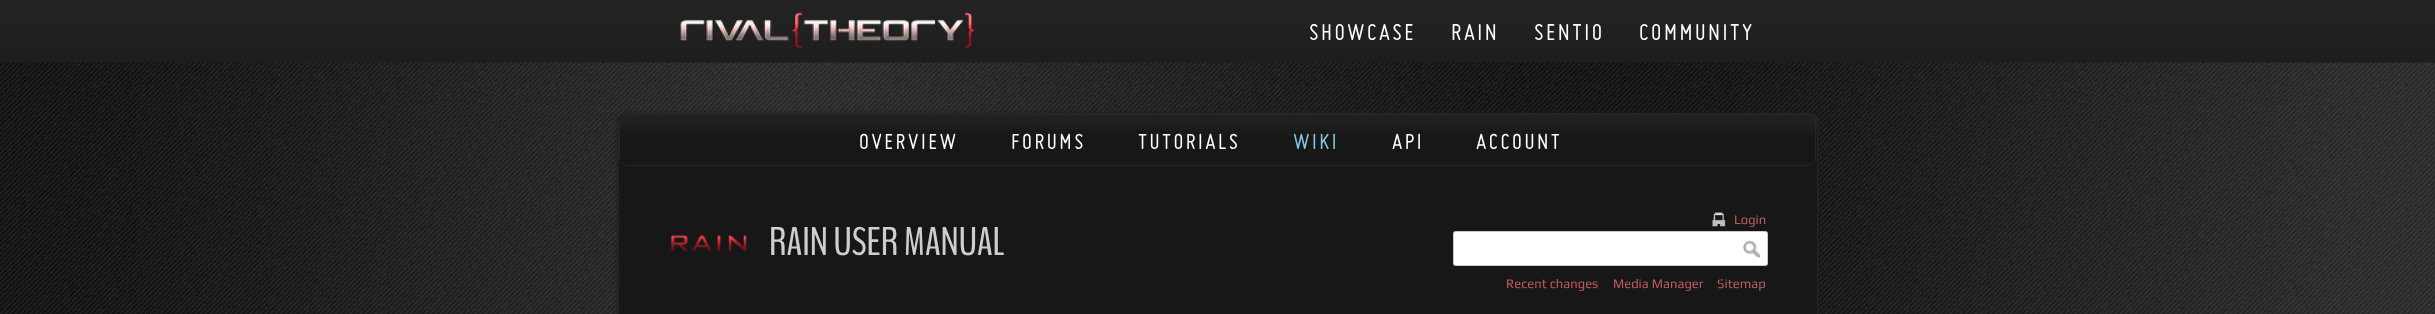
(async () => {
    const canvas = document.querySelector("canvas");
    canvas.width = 2435;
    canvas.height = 314;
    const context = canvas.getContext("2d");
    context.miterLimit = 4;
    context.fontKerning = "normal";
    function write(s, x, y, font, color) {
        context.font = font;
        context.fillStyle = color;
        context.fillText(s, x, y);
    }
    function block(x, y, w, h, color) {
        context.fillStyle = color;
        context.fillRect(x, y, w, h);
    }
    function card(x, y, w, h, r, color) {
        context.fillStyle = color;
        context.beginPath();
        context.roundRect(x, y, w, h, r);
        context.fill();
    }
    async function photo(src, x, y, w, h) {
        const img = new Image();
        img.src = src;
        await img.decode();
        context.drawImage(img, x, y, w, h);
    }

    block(0, 0, 2435, 314, "rgb(255, 255, 255)");
    await photo("media/1.png", 0, 62, 2435, 252);
    await photo("media/2.png", 0, 0, 2435, 63);
    await photo("media/3.png", 680, 12, 295, 37);
    context.letterSpacing = "2.5px";
    write("SHOWCASE", 1309, 40, "italic 25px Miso", "rgb(255, 255, 255)");
    write("RAIN", 1451, 40, "italic 25px Miso", "rgb(255, 255, 255)");
    write("SENTIO", 1534, 40, "italic 25px Miso", "rgb(255, 255, 255)");
    write("COMMUNITY", 1639, 40, "italic 25px Miso", "rgb(255, 255, 255)");
    context.fillStyle = "rgb(30, 30, 30)";
    context.filter = "blur(2.5px)";
    context.beginPath();
    context.roundRect(618, 113, 1200, 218, 9);
    context.fill();
    context.filter = "none";
    card(618, 113, 1200, 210, 9, "rgb(23, 23, 23)");
    await photo("media/4.png", 617, 114, 1200, 199);
    context.beginPath();
    context.roundRect(618.5, 113.5, 1199, 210, 8.5);
    context.strokeStyle = "rgb(38, 38, 38)";
    context.stroke();
    context.beginPath();
    context.roundRect(619.5, 114.5, 1196, 51, 8.5);
    context.stroke();
    write("OVERVIEW", 859, 149, "italic 23.75px Miso", "rgb(255, 255, 255)");
    write("FORUMS", 1011, 149, "italic 23.75px Miso", "rgb(255, 255, 255)");
    write("TUTORIALS", 1138, 149, "italic 23.75px Miso", "rgb(255, 255, 255)");
    write("WIKI", 1293, 149, "italic 23.75px Miso", "rgb(134, 199, 227)");
    write("API", 1392, 149, "italic 23.75px Miso", "rgb(255, 255, 255)");
    write("ACCOUNT", 1476, 149, "italic 23.75px Miso", "rgb(255, 255, 255)");
    await photo("media/5.png", 671, 234, 76, 18);
    context.letterSpacing = "0px";
    write("RAIN USER MANUAL", 769, 255, "40px BenchNine", "rgb(206, 206, 206)");
    await photo("media/6.png", 1712, 212, 14, 15);
    write("Login", 1734, 224, "13px Play", "rgb(187, 91, 99)");
    context.fillStyle = "rgb(255, 255, 255)";
    context.beginPath();
    context.roundRect(1453.5, 231.5, 314, 34, 2);
    context.fill();
    context.strokeStyle = "rgb(204, 204, 204)";
    context.stroke();
    await photo("media/7.png", 1742, 240, 18, 18);
    write("Recent changes", 1506, 288, "13px Play", "rgb(187, 91, 99)");
    write("Media Manager", 1613, 288, "13px Play", "rgb(187, 91, 99)");
    write("Sitemap", 1717, 288, "13px Play", "rgb(187, 91, 99)");
})();
